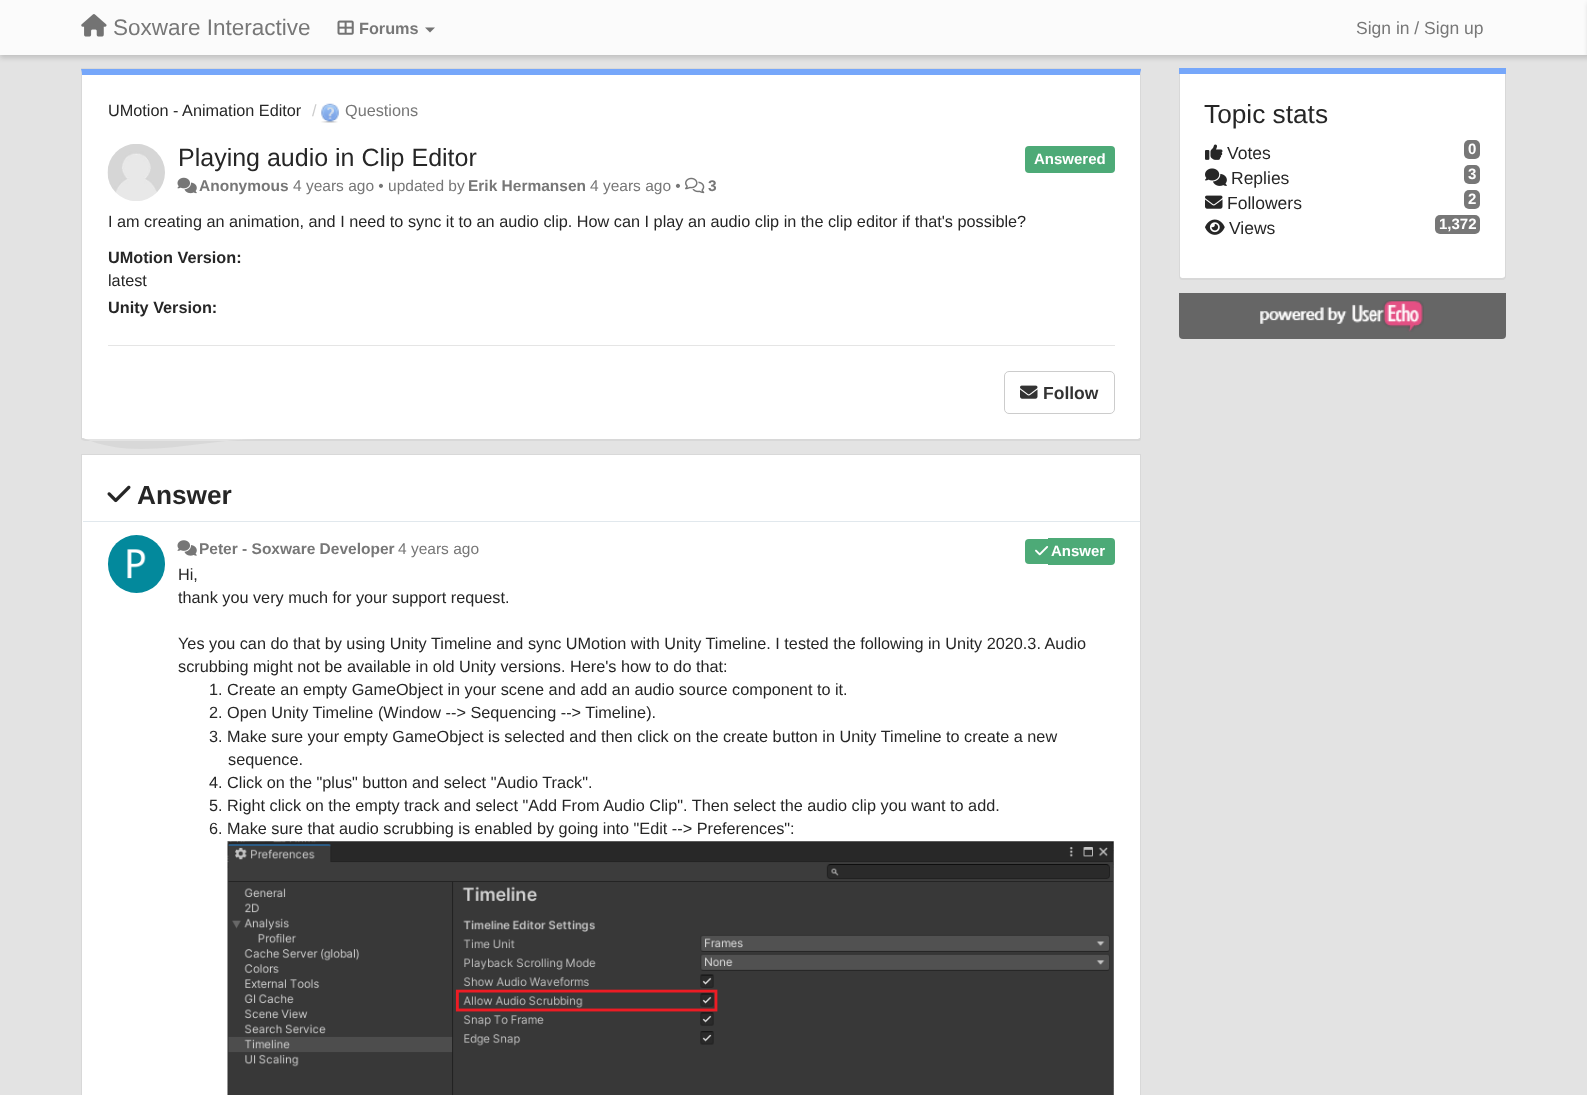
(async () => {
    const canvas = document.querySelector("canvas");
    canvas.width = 1587;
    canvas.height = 1095;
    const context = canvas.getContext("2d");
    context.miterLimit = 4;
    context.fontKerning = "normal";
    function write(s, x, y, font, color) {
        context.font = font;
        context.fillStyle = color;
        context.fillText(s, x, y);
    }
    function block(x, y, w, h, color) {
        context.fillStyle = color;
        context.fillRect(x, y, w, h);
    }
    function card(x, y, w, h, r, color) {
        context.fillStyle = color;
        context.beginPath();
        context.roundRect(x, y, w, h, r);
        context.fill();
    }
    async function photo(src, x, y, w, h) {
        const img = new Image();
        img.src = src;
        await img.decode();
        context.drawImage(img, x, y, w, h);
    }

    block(0, 0, 1587, 1095, "rgb(227, 227, 227)");
    context.fillStyle = "rgba(0, 0, 0, 0.15)";
    context.filter = "blur(2.5px)";
    context.beginPath();
    context.rect(0, 3, 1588, 55);
    context.fill();
    context.filter = "none";
    block(0, 0, 1587, 55, "rgb(251, 251, 251)");
    await photo("media/1.png", 81, 14, 26, 23);
    write("Soxware Interactive", 113, 35, "22.5px Liberation Sans", "rgb(119, 119, 119)");
    await photo("media/2.png", 337, 20, 17, 15);
    write("Forums", 359, 34, "bold 16.25px Liberation Sans", "rgb(119, 119, 119)");
    context.fillStyle = "rgb(115, 115, 115)";
    context.beginPath();
    context.moveTo(425, 27.5);
    context.lineTo(435, 27.5);
    context.lineTo(430, 32.5);
    context.closePath();
    context.fill();
    write("Sign in / Sign up", 1356, 34, "17.5px Liberation Sans", "rgb(119, 119, 119)");
    context.fillStyle = "rgba(0, 0, 0, 0.15)";
    context.filter = "blur(2.5px)";
    context.beginPath();
    context.rect(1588, 3, 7, 55);
    context.fill();
    context.filter = "none";
    block(81, 68, 1060, 1, "rgb(216, 216, 216)");
    context.fillStyle = "rgb(255, 255, 255)";
    context.beginPath();
    context.moveTo(82, 75);
    context.lineTo(1140, 75);
    context.lineTo(1140, 438);
    context.bezierCurveTo(1140, 438, 1139, 439, 1138, 439);
    context.lineTo(85, 439);
    context.bezierCurveTo(84, 439, 82, 438, 82, 438);
    context.closePath();
    context.fill();
    context.fillStyle = "rgb(118, 167, 250)";
    context.beginPath();
    context.moveTo(1141, 70);
    context.lineTo(1141, 69);
    context.lineTo(81, 69);
    context.lineTo(82, 75);
    context.lineTo(1140, 75);
    context.closePath();
    context.fill();
    context.fillStyle = "rgb(216, 216, 216)";
    context.beginPath();
    context.moveTo(1141, 440);
    context.lineTo(1141, 438);
    context.lineTo(1141, 70);
    context.lineTo(1140, 75);
    context.lineTo(1140, 438);
    context.closePath();
    context.fill();
    context.beginPath();
    context.moveTo(1141, 440);
    context.lineTo(1139, 441);
    context.lineTo(85, 441);
    context.lineTo(82, 440);
    context.lineTo(83, 438);
    context.bezierCurveTo(137, 462, 201, 439, 260, 439);
    context.lineTo(1138, 439);
    context.lineTo(1140, 438);
    context.closePath();
    context.fill();
    context.beginPath();
    context.moveTo(82, 75);
    context.lineTo(82, 438);
    context.lineTo(83, 438);
    context.lineTo(82, 440);
    context.lineTo(81, 439);
    context.lineTo(81, 69);
    context.closePath();
    context.fill();
    write("UMotion - Animation Editor", 108, 116, "16.25px Liberation Sans", "rgb(38, 38, 38)");
    write("/", 312, 116, "16.25px Liberation Sans", "rgb(204, 204, 204)");
    await photo("media/3.png", 321, 103, 18, 20);
    write("Questions", 345, 116, "16.25px Liberation Sans", "rgb(119, 119, 119)");
    await photo("media/4.png", 107, 144, 58, 57);
    write("Playing audio in Clip Editor", 178, 166, "25px Liberation Sans", "rgb(38, 38, 38)");
    card(1025, 146, 90, 27, 4, "rgb(77, 170, 119)");
    write("Answered", 1034, 164, "bold 15px Liberation Sans", "rgb(255, 255, 255)");
    await photo("media/5.png", 177, 177, 20, 17);
    write("Anonymous", 199, 191, "bold 15.5px Liberation Sans", "rgb(119, 119, 119)");
    write("4 years ago • updated by", 293, 191, "15.5px Liberation Sans", "rgb(119, 119, 119)");
    write("Erik Hermansen", 468, 191, "bold 15.5px Liberation Sans", "rgb(119, 119, 119)");
    write("4 years ago •", 590, 191, "15.5px Liberation Sans", "rgb(119, 119, 119)");
    await photo("media/6.png", 685, 177, 20, 17);
    write("3", 708, 191, "bold 15.5px Liberation Sans", "rgb(119, 119, 119)");
    write("I am creating an animation, and I need to sync it to an audio clip. How can I play an audio clip in the clip editor if that's possible?", 108, 227, "16.25px Liberation Sans", "rgb(38, 38, 38)");
    write("UMotion Version:", 108, 263, "bold 16.25px Liberation Sans", "rgb(38, 38, 38)");
    write("latest", 108, 286, "16.25px Liberation Sans", "rgb(38, 38, 38)");
    write("Unity Version:", 108, 313, "bold 16.25px Liberation Sans", "rgb(38, 38, 38)");
    block(108, 345, 1007, 1, "rgb(229, 229, 229)");
    context.beginPath();
    context.roundRect(1004.5, 371.5, 110, 42, 4.5);
    context.strokeStyle = "rgb(204, 204, 204)";
    context.stroke();
    await photo("media/7.png", 1020, 385, 18, 14);
    write("Follow", 1043, 399, "bold 17.5px Liberation Sans", "rgb(51, 51, 51)");
    context.fillStyle = "rgb(255, 255, 255)";
    context.beginPath();
    context.moveTo(82, 455);
    context.lineTo(1140, 455);
    context.lineTo(1140, 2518);
    context.lineTo(1138, 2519);
    context.lineTo(85, 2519);
    context.bezierCurveTo(84, 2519, 82, 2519, 82, 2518);
    context.closePath();
    context.fill();
    context.strokeStyle = "rgb(216, 216, 216)";
    context.strokeRect(81.5, 454.5, 1059, 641);
    await photo("media/8.png", 107, 485, 24, 18);
    write("Answer", 137, 504, "bold 26.25px Liberation Sans", "rgb(38, 38, 38)");
    block(83, 521, 1057, 1, "rgb(225, 232, 237)");
    card(108, 535, 57, 58, 28.5, "rgb(3, 137, 156)");
    await photo("media/9.png", 127, 549, 19, 30);
    await photo("media/10.png", 177, 540, 20, 16);
    write("Peter - Soxware Developer", 199, 554, "bold 15.5px Liberation Sans", "rgb(119, 119, 119)");
    write("4 years ago", 398, 554, "15.5px Liberation Sans", "rgb(119, 119, 119)");
    context.fillStyle = "rgb(77, 170, 119)";
    context.beginPath();
    context.roundRect(1025, 539, 23, 25, [4, 0, 0, 4]);
    context.fill();
    context.beginPath();
    context.roundRect(1048, 538, 67, 27, [0, 4, 4, 0]);
    context.fill();
    await photo("media/11.png", 1035, 546, 14, 10);
    write("Answer", 1051, 556, "bold 15px Liberation Sans", "rgb(255, 255, 255)");
    write("Hi,", 178, 580, "16.25px Liberation Sans", "rgb(38, 38, 38)");
    write("thank you very much for your support request.", 178, 603, "16.25px Liberation Sans", "rgb(38, 38, 38)");
    write("Yes you can do that by using Unity Timeline and sync UMotion with Unity Timeline. I tested the following in Unity 2020.3. Audio", 178, 649, "16.25px Liberation Sans", "rgb(38, 38, 38)");
    write("scrubbing might not be available in old Unity versions. Here's how to do that:", 178, 672, "16.25px Liberation Sans", "rgb(38, 38, 38)");
    write("1. Create an empty GameObject in your scene and add an audio source component to it.", 209, 695, "16.25px Liberation Sans", "rgb(38, 38, 38)");
    write("2. Open Unity Timeline (Window --> Sequencing --> Timeline).", 209, 718, "16.25px Liberation Sans", "rgb(38, 38, 38)");
    write("3. Make sure your empty GameObject is selected and then click on the create button in Unity Timeline to create a new", 209, 742, "16.25px Liberation Sans", "rgb(38, 38, 38)");
    write("sequence.", 228, 765, "16.25px Liberation Sans", "rgb(38, 38, 38)");
    write("4. Click on the \"plus\" button and select \"Audio Track\".", 209, 788, "16.25px Liberation Sans", "rgb(38, 38, 38)");
    write("5. Right click on the empty track and select \"Add From Audio Clip\". Then select the audio clip you want to add.", 209, 811, "16.25px Liberation Sans", "rgb(38, 38, 38)");
    write("6. Make sure that audio scrubbing is enabled by going into \"Edit --> Preferences\":", 209, 834, "16.25px Liberation Sans", "rgb(38, 38, 38)");
    await photo("media/12.png", 227, 841, 887, 254);
    block(1179, 68, 327, 6, "rgb(118, 167, 250)");
    context.fillStyle = "rgb(255, 255, 255)";
    context.beginPath();
    context.moveTo(1180, 74);
    context.lineTo(1505, 74);
    context.lineTo(1505, 276);
    context.bezierCurveTo(1505, 277, 1504, 278, 1502, 278);
    context.lineTo(1182, 278);
    context.bezierCurveTo(1181, 278, 1180, 277, 1180, 276);
    context.closePath();
    context.fill();
    context.fillStyle = "rgb(216, 216, 216)";
    context.beginPath();
    context.moveTo(1179, 74);
    context.lineTo(1506, 74);
    context.lineTo(1506, 276);
    context.bezierCurveTo(1506, 278, 1505, 280, 1502, 280);
    context.lineTo(1182, 280);
    context.bezierCurveTo(1180, 280, 1179, 278, 1179, 276);
    context.closePath();
    context.moveTo(1180, 74);
    context.lineTo(1505, 74);
    context.lineTo(1505, 276);
    context.bezierCurveTo(1505, 277, 1504, 278, 1502, 278);
    context.lineTo(1182, 278);
    context.bezierCurveTo(1181, 278, 1180, 277, 1180, 276);
    context.closePath();
    context.fill("evenodd");
    write("Topic stats", 1204, 123, "26.25px Liberation Sans", "rgb(38, 38, 38)");
    await photo("media/13.png", 1205, 144, 18, 16);
    write("Votes", 1227, 159, "17.5px Liberation Sans", "rgb(38, 38, 38)");
    card(1464, 140, 16, 19, 5, "rgb(119, 119, 119)");
    write("0", 1468, 154, "bold 15px Liberation Sans", "rgb(255, 255, 255)");
    await photo("media/14.png", 1205, 168, 22, 18);
    write("Replies", 1231, 184, "17.5px Liberation Sans", "rgb(38, 38, 38)");
    card(1464, 165, 16, 19, 5, "rgb(119, 119, 119)");
    write("3", 1468, 179, "bold 15px Liberation Sans", "rgb(255, 255, 255)");
    await photo("media/15.png", 1205, 195, 18, 14);
    write("Followers", 1227, 209, "17.5px Liberation Sans", "rgb(38, 38, 38)");
    card(1464, 190, 16, 19, 5, "rgb(119, 119, 119)");
    write("2", 1468, 204, "bold 15px Liberation Sans", "rgb(255, 255, 255)");
    await photo("media/16.png", 1205, 219, 20, 16);
    write("Views", 1229, 234, "17.5px Liberation Sans", "rgb(38, 38, 38)");
    card(1435, 215, 45, 19, 5, "rgb(119, 119, 119)");
    write("1,372", 1439, 229, "bold 15px Liberation Sans", "rgb(255, 255, 255)");
    context.fillStyle = "rgb(102, 102, 102)";
    context.beginPath();
    context.roundRect(1179, 293, 327, 46, [0, 0, 4, 4]);
    context.fill();
    await photo("media/17.png", 1260, 300, 164, 32);
})();
